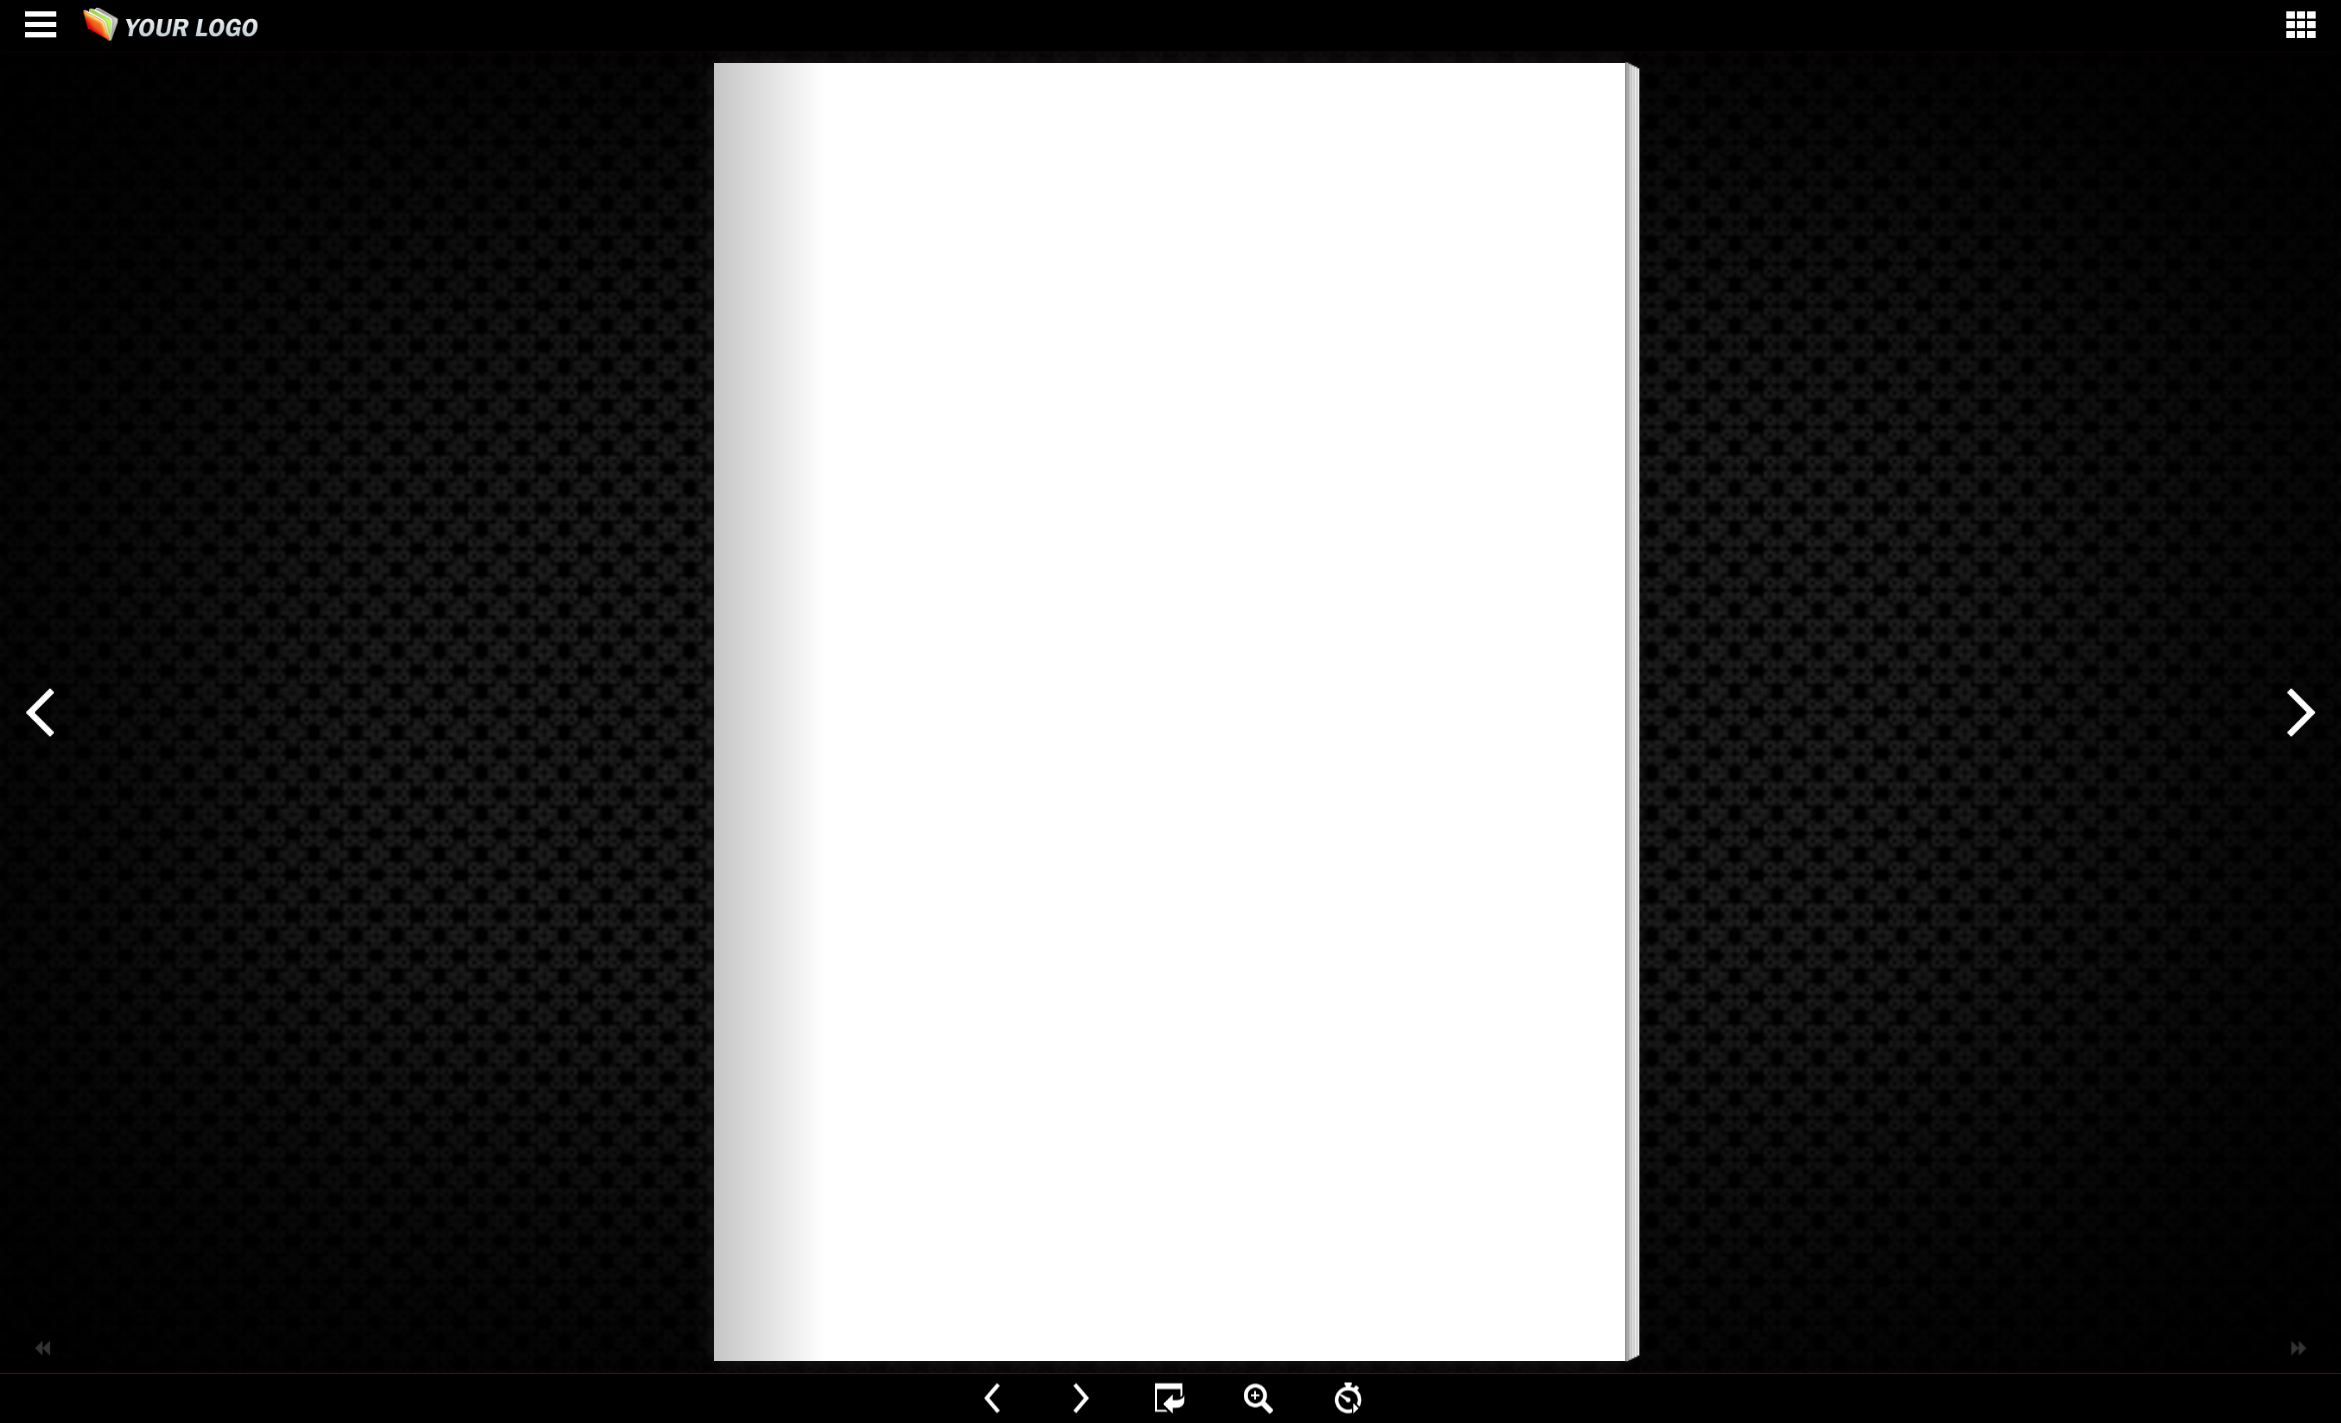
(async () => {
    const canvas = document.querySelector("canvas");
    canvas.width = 2341;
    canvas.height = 1423;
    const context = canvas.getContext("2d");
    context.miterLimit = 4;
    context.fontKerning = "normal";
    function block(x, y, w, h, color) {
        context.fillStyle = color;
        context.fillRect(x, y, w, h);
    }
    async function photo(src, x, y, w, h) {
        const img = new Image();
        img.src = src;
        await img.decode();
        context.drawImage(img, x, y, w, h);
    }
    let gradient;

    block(0, 0, 2341, 1423, "rgb(255, 255, 255)");
    await photo("media/7.png", 0, 51, 2341, 1322);
    context.fillStyle = "rgba(40, 0, 0, 0.5)";
    context.filter = "blur(3px)";
    context.beginPath();
    context.rect(0, 0, 2341, 51);
    context.fill();
    context.filter = "none";
    context.fillStyle = "rgba(40, 40, 40, 0.7)";
    context.filter = "blur(9.5px)";
    context.beginPath();
    context.rect(714, 63, 914, 1298);
    context.fill();
    context.filter = "none";
    block(0, 0, 2341, 51, "rgb(0, 0, 0)");
    await photo("media/1.png", 25, 11, 32, 27);
    await photo("media/2.png", 83, 7, 175, 34);
    await photo("media/3.png", 2286, 11, 30, 27);
    gradient = context.createLinearGradient(714, 63, 825, 63);
    gradient.addColorStop(0, "rgb(197, 197, 197)");
    gradient.addColorStop(1, "rgb(255, 255, 255)");
    context.fillStyle = gradient;
    context.fillRect(714, 63, 111, 1298);
    block(825, 63, 803, 1298, "rgb(255, 255, 255)");
    await photo("media/4.png", 1625, 62, 15, 63);
    await photo("media/5.png", 1625, 125, 22, 1174);
    await photo("media/6.png", 1625, 1298, 15, 64);
    await photo("media/8.png", 26, 688, 28, 49);
    await photo("media/9.png", 2287, 688, 29, 49);
    await photo("media/10.png", 35, 1341, 16, 15);
    await photo("media/11.png", 2291, 1341, 16, 15);
    context.fillStyle = "rgba(40, 0, 0, 0.5)";
    context.filter = "blur(3px)";
    context.beginPath();
    context.rect(0, 1373, 2341, 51);
    context.fill();
    context.filter = "none";
    block(0, 1374, 2341, 49, "rgb(0, 0, 0)");
    block(0, 1373, 2341, 1, "rgb(30, 30, 30)");
    await photo("media/12.png", 984, 1382, 16, 32);
    await photo("media/13.png", 1073, 1382, 16, 32);
    await photo("media/14.png", 1155, 1382, 30, 32);
    await photo("media/15.png", 1244, 1383, 29, 32);
    await photo("media/16.png", 1334, 1382, 28, 32);
})();
